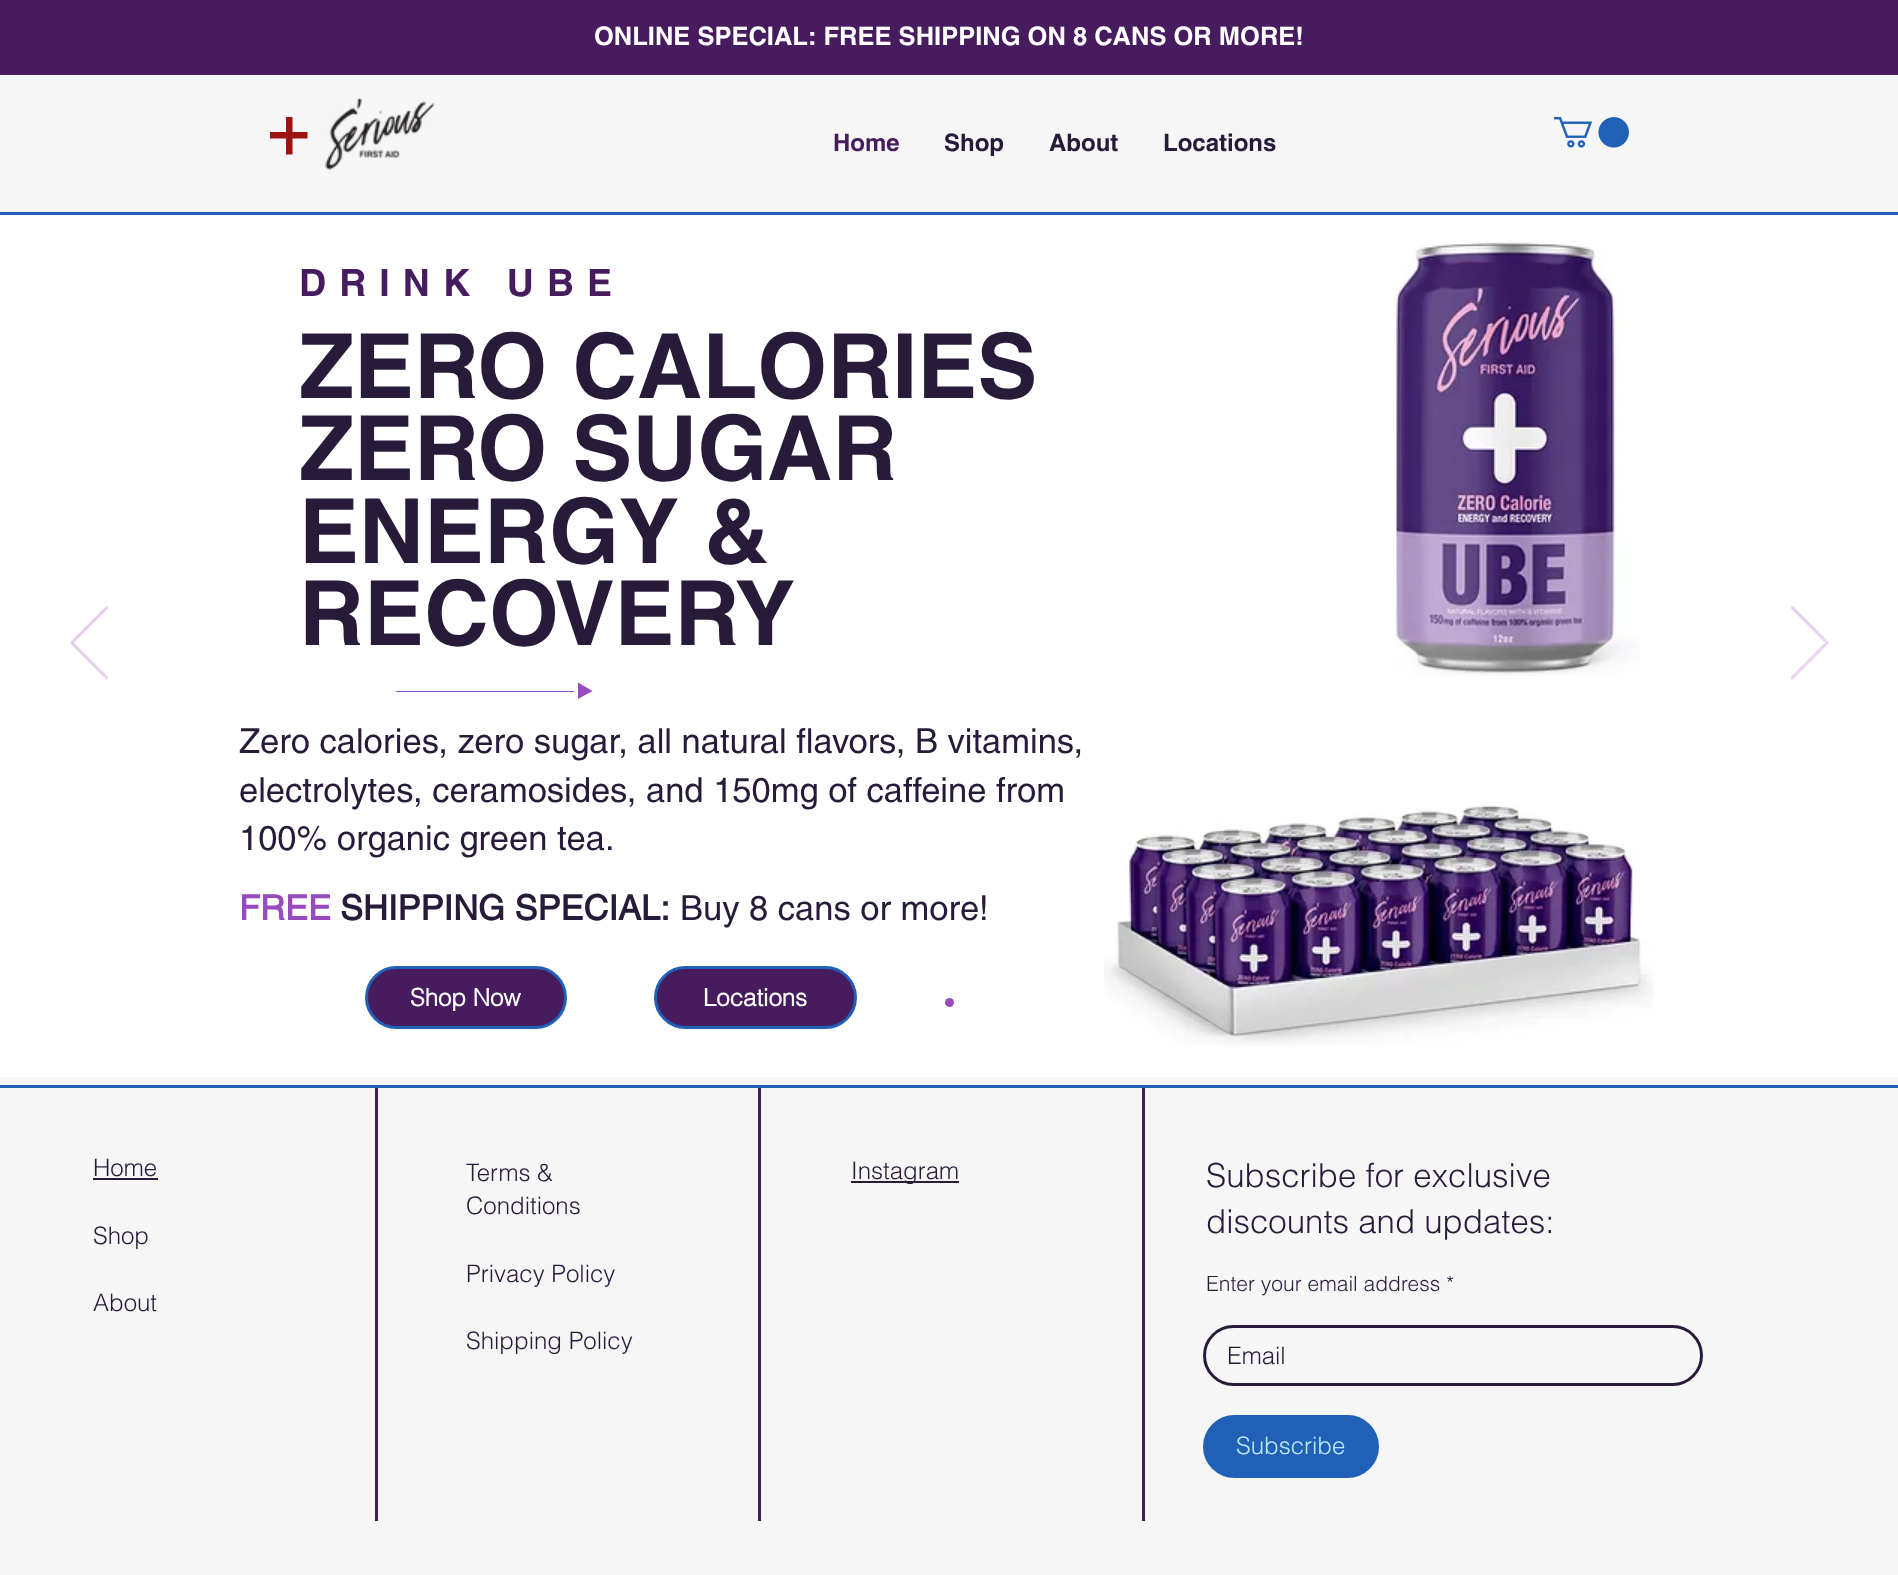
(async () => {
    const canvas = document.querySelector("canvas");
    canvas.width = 1898;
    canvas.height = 1575;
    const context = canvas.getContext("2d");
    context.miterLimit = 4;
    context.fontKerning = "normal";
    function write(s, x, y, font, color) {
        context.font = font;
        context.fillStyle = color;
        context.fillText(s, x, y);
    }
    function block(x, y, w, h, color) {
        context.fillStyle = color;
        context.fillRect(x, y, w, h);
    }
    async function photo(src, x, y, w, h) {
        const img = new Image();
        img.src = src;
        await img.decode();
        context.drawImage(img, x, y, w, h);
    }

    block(0, 0, 1898, 1575, "rgb(246, 246, 246)");
    block(0, 0, 1898, 75, "rgb(71, 28, 94)");
    write("ONLINE SPECIAL: FREE SHIPPING ON 8 CANS OR MORE!", 594, 45, "bold 25.5px helvetica", "rgb(255, 255, 255)");
    context.fillStyle = "rgb(160, 18, 18)";
    context.beginPath();
    context.moveTo(307.5, 132);
    context.lineTo(292.5, 132);
    context.lineTo(292.5, 117);
    context.lineTo(286, 117);
    context.lineTo(286, 132);
    context.lineTo(270, 132);
    context.lineTo(270, 138.5);
    context.lineTo(286, 138.5);
    context.lineTo(286, 154.5);
    context.lineTo(292.5, 154.5);
    context.lineTo(292.5, 138.5);
    context.lineTo(307.5, 138.5);
    context.closePath();
    context.fill();
    await photo("media/1.png", 325, 97, 110, 73);
    write("Home", 833, 151, "bold 24px helvetica", "rgb(71, 28, 94)");
    write("Shop", 944, 151, "bold 24px helvetica", "rgb(40, 26, 57)");
    write("About", 1049, 151, "bold 24px helvetica", "rgb(40, 26, 57)");
    write("Locations", 1163, 151, "bold 24px helvetica", "rgb(40, 26, 57)");
    await photo("media/2.png", 1554, 117, 75, 31);
    block(0, 212, 1898, 3, "rgb(32, 97, 183)");
    block(0, 215, 1898, 862, "rgb(255, 255, 255)");
    context.fillStyle = "rgb(240, 228, 245)";
    context.beginPath();
    context.moveTo(107, 679);
    context.lineTo(70, 643);
    context.lineTo(107, 606);
    context.lineTo(108, 608);
    context.lineTo(73, 643);
    context.lineTo(108, 678);
    context.closePath();
    context.fill();
    context.save();
    context.beginPath();
    context.rect(71, 606, 37, 74);
    context.clip();
    context.beginPath();
    context.moveTo(106.5, 679);
    context.lineTo(70.5, 642.5);
    context.lineTo(106.5, 606.5);
    context.lineTo(108, 607.5);
    context.lineTo(73, 642.5);
    context.lineTo(108, 677.5);
    context.closePath();
    context.strokeStyle = "rgba(152, 74, 191, 0.15)";
    context.lineWidth = 1.8;
    context.stroke();
    context.restore();
    context.letterSpacing = "13.1px";
    write("DRINK UBE", 299, 296, "bold 37.5px helvetica", "rgb(71, 28, 94)");
    await photo("media/3.png", 1393, 240, 247, 436);
    context.letterSpacing = "0px";
    write("ZERO CALORIES", 299, 398, "bold 90px helvetica", "rgb(40, 26, 57)");
    write("ZERO SUGAR", 299, 480, "bold 90px helvetica", "rgb(40, 26, 57)");
    write("ENERGY &", 299, 563, "bold 90px helvetica", "rgb(40, 26, 57)");
    write("RECOVERY", 299, 645, "bold 90px helvetica", "rgb(40, 26, 57)");
    block(396, 691, 178, 1, "rgb(152, 74, 191)");
    context.beginPath();
    context.moveTo(578, 682.5);
    context.lineTo(578, 699);
    context.lineTo(592.5, 691);
    context.closePath();
    context.fill();
    write("Zero calories, zero sugar, all natural flavors, B vitamins,", 239, 753, "34.5px helvetica", "rgb(40, 26, 57)");
    write("electrolytes, ceramosides, and 150mg of caffeine from", 239, 802, "34.5px helvetica", "rgb(40, 26, 57)");
    write("100% organic green tea.", 239, 850, "34.5px helvetica", "rgb(40, 26, 57)");
    write("FREE", 239, 920, "bold 34.5px 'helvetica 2'", "rgb(152, 74, 191)");
    write("SHIPPING SPECIAL:", 340, 920, "bold 34.5px 'helvetica 2'", "rgb(40, 26, 57)");
    write("Buy 8 cans or more!", 680, 920, "34.5px helvetica", "rgb(40, 26, 57)");
    await photo("media/4.png", 1104, 805, 549, 241);
    context.fillStyle = "rgb(71, 28, 94)";
    context.beginPath();
    context.roundRect(366.5, 967.5, 199, 60, 30);
    context.fill();
    context.strokeStyle = "rgb(32, 97, 183)";
    context.lineWidth = 3;
    context.stroke();
    write("Shop Now", 410, 1006, "bold 24px 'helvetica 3'", "rgb(255, 255, 255)");
    context.fillStyle = "rgb(71, 28, 94)";
    context.beginPath();
    context.roundRect(655.5, 967.5, 200, 60, 30);
    context.fill();
    context.stroke();
    write("Locations", 703, 1006, "bold 24px 'helvetica 3'", "rgb(255, 255, 255)");
    context.fillStyle = "rgb(240, 228, 245)";
    context.beginPath();
    context.moveTo(1792, 679);
    context.lineTo(1828, 643);
    context.lineTo(1792, 606);
    context.lineTo(1791, 608);
    context.lineTo(1826, 643);
    context.lineTo(1791, 678);
    context.closePath();
    context.fill();
    context.save();
    context.beginPath();
    context.rect(1791, 606, 38, 74);
    context.clip();
    context.beginPath();
    context.moveTo(1792.5, 679);
    context.lineTo(1828.5, 642.5);
    context.lineTo(1792.5, 606.5);
    context.lineTo(1791, 607.5);
    context.lineTo(1826, 642.5);
    context.lineTo(1791, 677.5);
    context.closePath();
    context.strokeStyle = "rgba(152, 74, 191, 0.15)";
    context.lineWidth = 1.8;
    context.stroke();
    context.restore();
    context.fillStyle = "rgb(152, 74, 191)";
    context.beginPath();
    context.arc(949.5, 1002.5, 4.5, 0, Math.PI * 2);
    context.fill();
    block(0, 1085, 1898, 3, "rgb(32, 97, 183)");
    block(375, 1088, 770, 433, "rgb(71, 28, 94)");
    write("Home", 93, 1176, "300 24px helvetica", "rgb(40, 26, 57)");
    block(93, 1178, 65, 2, "rgb(40, 26, 57)");
    write("Shop", 93, 1244, "300 24px helvetica", "rgb(40, 26, 57)");
    write("About", 93, 1311, "300 24px helvetica", "rgb(40, 26, 57)");
    block(378, 1088, 380, 433, "rgb(246, 246, 246)");
    write("Terms &", 466, 1181, "300 24px helvetica", "rgb(40, 26, 57)");
    write("Conditions", 466, 1214, "300 24px helvetica", "rgb(40, 26, 57)");
    write("Privacy Policy", 466, 1282, "300 24px helvetica", "rgb(40, 26, 57)");
    write("Shipping Policy", 466, 1349, "300 24px helvetica", "rgb(40, 26, 57)");
    block(761, 1088, 381, 433, "rgb(246, 246, 246)");
    block(851, 1181, 108, 2, "rgb(40, 26, 57)");
    write("Instagram", 851, 1179, "300 24px helvetica", "rgb(40, 26, 57)");
    write("Subscribe for exclusive", 1206, 1187, "300 33px helvetica", "rgb(40, 26, 57)");
    write("discounts and updates:", 1206, 1233, "300 33px helvetica", "rgb(40, 26, 57)");
    write("Enter your email address *", 1206, 1291, "300 21px helvetica", "rgb(40, 26, 57)");
    context.beginPath();
    context.roundRect(1204.5, 1326.5, 497, 58, 29);
    context.strokeStyle = "rgb(40, 26, 57)";
    context.stroke();
    write("Email", 1227, 1364, "300 24px helvetica", "rgb(40, 26, 57)");
    context.fillStyle = "rgb(32, 97, 183)";
    context.beginPath();
    context.roundRect(1204.5, 1416.5, 173, 60, 30);
    context.fill();
    context.strokeStyle = "rgb(32, 97, 183)";
    context.stroke();
    write("Subscribe", 1236, 1454, "300 24px helvetica", "rgb(189, 233, 251)");
})();
